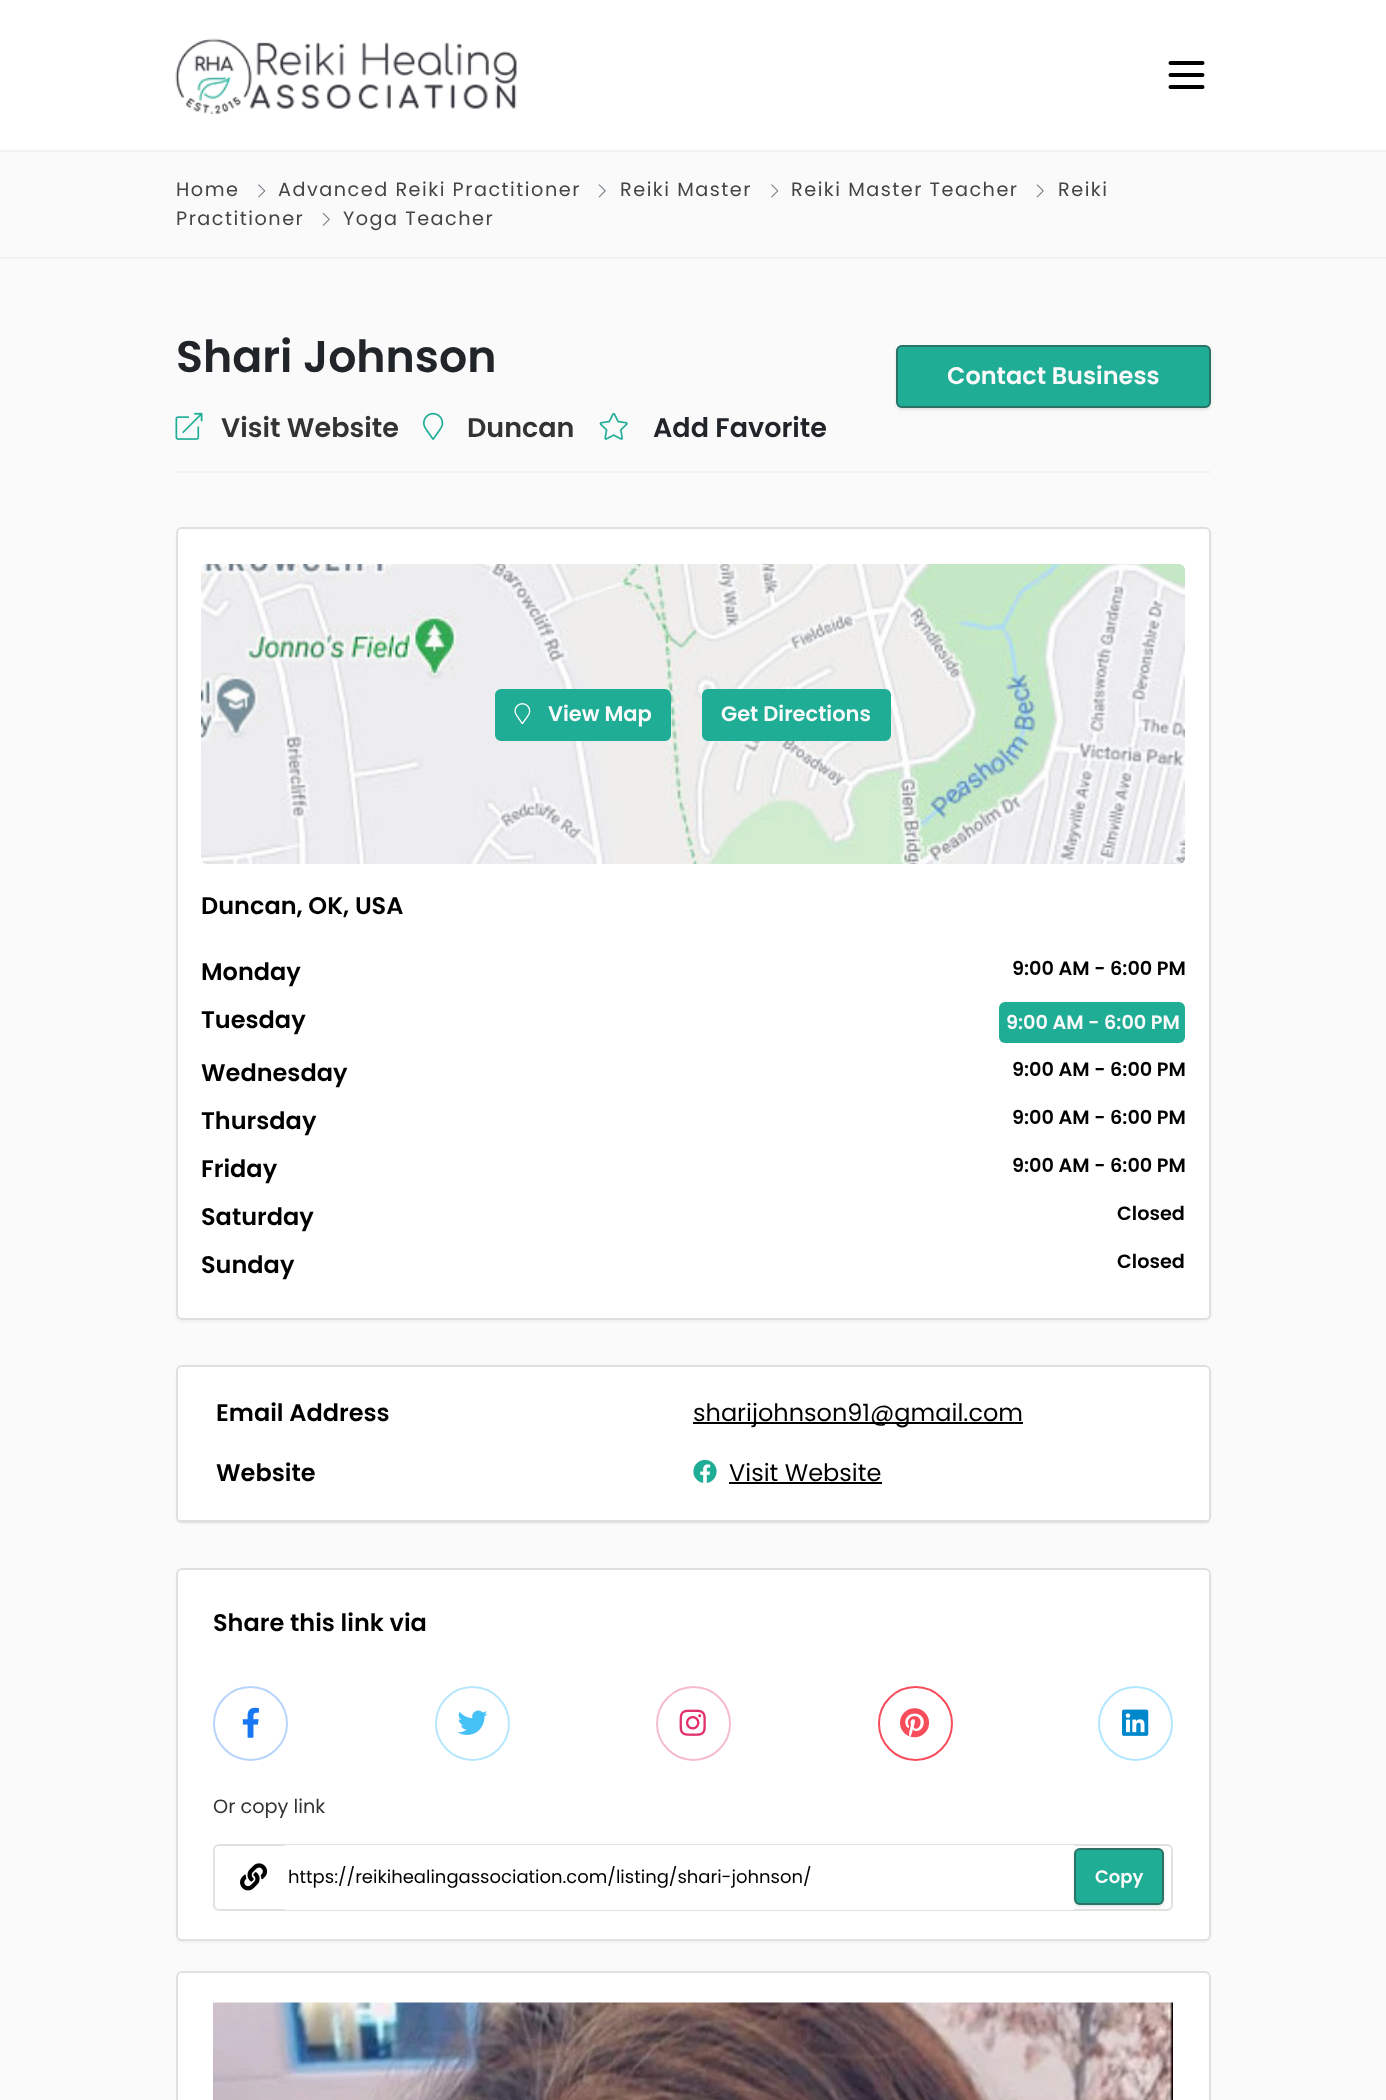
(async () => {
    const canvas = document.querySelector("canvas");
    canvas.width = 1386;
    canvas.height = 2100;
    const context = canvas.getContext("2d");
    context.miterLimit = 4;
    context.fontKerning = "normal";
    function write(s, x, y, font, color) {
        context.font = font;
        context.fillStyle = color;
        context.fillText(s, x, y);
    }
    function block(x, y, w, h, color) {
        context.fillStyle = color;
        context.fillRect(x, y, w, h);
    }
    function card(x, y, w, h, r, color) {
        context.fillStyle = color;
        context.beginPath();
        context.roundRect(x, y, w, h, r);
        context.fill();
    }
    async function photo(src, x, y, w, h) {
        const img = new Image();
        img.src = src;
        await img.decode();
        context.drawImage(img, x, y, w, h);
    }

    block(0, 0, 1386, 2100, "rgb(250, 250, 251)");
    block(0, 0, 1386, 150, "rgb(255, 255, 255)");
    block(0, 150, 1386, 2, "rgb(242, 242, 242)");
    await photo("media/1.png", 175, 38, 342, 76);
    context.beginPath();
    context.moveTo(1170.5, 63);
    context.lineTo(1202.5, 63);
    context.moveTo(1170.5, 75);
    context.lineTo(1202.5, 75);
    context.moveTo(1170.5, 87);
    context.lineTo(1202.5, 87);
    context.strokeStyle = "rgb(0, 0, 0)";
    context.lineWidth = 4;
    context.lineCap = "round";
    context.lineJoin = "round";
    context.stroke();
    block(0, 257, 1386, 2, "rgb(242, 242, 242)");
    await photo("media/2.png", 1036, 184, 8, 14);
    context.letterSpacing = "1.5px";
    write("Reiki", 1058, 196, "19.25px Poppins", "rgb(68, 68, 68)");
    write("Practitioner", 176, 225, "19.25px Poppins", "rgb(68, 68, 68)");
    write("Home", 176, 196, "19.25px Poppins", "rgb(68, 68, 68)");
    await photo("media/3.png", 258, 184, 8, 14);
    write("Advanced Reiki Practitioner", 278, 196, "19.25px Poppins", "rgb(68, 68, 68)");
    await photo("media/2.png", 598, 184, 8, 14);
    write("Reiki Master", 620, 196, "19.25px Poppins", "rgb(68, 68, 68)");
    await photo("media/3.png", 771, 184, 8, 14);
    write("Reiki Master Teacher", 791, 196, "19.25px Poppins", "rgb(68, 68, 68)");
    await photo("media/4.png", 322, 212, 8, 14);
    write("Yoga Teacher", 343, 225, "19.25px Poppins", "rgb(68, 68, 68)");
    block(176, 471, 1035, 2, "rgb(242, 242, 242)");
    context.letterSpacing = "0px";
    write("Shari Johnson", 176, 372, "600 44.25px Poppins", "rgb(33, 37, 41)");
    await photo("media/5.png", 175, 412, 28, 28);
    write("Visit Website", 221, 437, "600 27px Poppins", "rgb(51, 51, 51)");
    await photo("media/6.png", 423, 412, 21, 28);
    write("Duncan", 467, 437, "600 27px Poppins", "rgb(51, 51, 51)");
    await photo("media/7.png", 599, 412, 29, 28);
    write("Add Favorite", 653, 437, "600 27px Poppins", "rgb(33, 37, 41)");
    context.fillStyle = "rgba(0, 0, 0, 0.1)";
    context.filter = "blur(1.5px)";
    context.beginPath();
    context.roundRect(896, 347, 315, 63, 6);
    context.fill();
    context.filter = "none";
    card(896, 345, 315, 63, 6, "rgb(32, 173, 150)");
    context.beginPath();
    context.roundRect(897, 346, 313, 61, 5);
    context.strokeStyle = "rgba(54, 54, 54, 0.49)";
    context.lineWidth = 2;
    context.lineJoin = "miter";
    context.stroke();
    write("Contact Business", 947, 384, "600 24px Poppins", "rgb(250, 250, 251)");
    context.fillStyle = "rgba(0, 0, 0, 0.04)";
    context.filter = "blur(1px)";
    context.beginPath();
    context.roundRect(176, 528, 1035, 794, 6);
    context.fill();
    context.filter = "none";
    context.fillStyle = "rgb(255, 255, 255)";
    context.beginPath();
    context.roundRect(177, 528, 1033, 791, 5);
    context.fill();
    context.strokeStyle = "rgb(224, 224, 224)";
    context.stroke();
    await photo("media/8.png", 201, 564, 984, 300);
    context.fillStyle = "rgb(32, 173, 150)";
    context.beginPath();
    context.roundRect(496, 690, 174, 50, 5);
    context.fill();
    context.strokeStyle = "rgb(32, 173, 150)";
    context.stroke();
    await photo("media/9.png", 514, 703, 17, 22);
    write("View Map", 548, 721, "600 21px Poppins", "rgb(250, 250, 251)");
    context.fillStyle = "rgb(32, 173, 150)";
    context.beginPath();
    context.roundRect(703, 690, 187, 50, 5);
    context.fill();
    context.stroke();
    write("Get Directions", 721, 721, "600 21px Poppins", "rgb(250, 250, 251)");
    write("Duncan, OK, USA", 201, 914, "600 24px Poppins", "rgb(0, 0, 0)");
    write("Monday", 201, 980, "600 24px Poppins", "rgb(0, 0, 0)");
    write("9:00 AM - 6:00 PM", 1012, 975, "600 19.25px Poppins", "rgb(0, 0, 0)");
    write("Tuesday", 201, 1028, "600 24px Poppins", "rgb(0, 0, 0)");
    card(999, 1002, 186, 41, 6, "rgb(32, 173, 150)");
    write("9:00 AM - 6:00 PM", 1006, 1029, "600 19.25px Poppins", "rgb(250, 250, 251)");
    write("Wednesday", 201, 1081, "600 24px Poppins", "rgb(0, 0, 0)");
    write("9:00 AM - 6:00 PM", 1012, 1076, "600 19.25px Poppins", "rgb(0, 0, 0)");
    write("Thursday", 201, 1129, "600 24px Poppins", "rgb(0, 0, 0)");
    write("9:00 AM - 6:00 PM", 1012, 1124, "600 19.25px Poppins", "rgb(0, 0, 0)");
    write("Friday", 201, 1177, "600 24px Poppins", "rgb(0, 0, 0)");
    write("9:00 AM - 6:00 PM", 1012, 1172, "600 19.25px Poppins", "rgb(0, 0, 0)");
    write("Saturday", 201, 1225, "600 24px Poppins", "rgb(0, 0, 0)");
    write("Closed", 1117, 1220, "600 19.25px Poppins", "rgb(0, 0, 0)");
    write("Sunday", 201, 1273, "600 24px Poppins", "rgb(0, 0, 0)");
    write("Closed", 1117, 1268, "600 19.25px Poppins", "rgb(0, 0, 0)");
    context.fillStyle = "rgba(0, 0, 0, 0.04)";
    context.filter = "blur(1px)";
    context.beginPath();
    context.roundRect(176, 1367, 1035, 157, 6);
    context.fill();
    context.filter = "none";
    context.fillStyle = "rgb(255, 255, 255)";
    context.beginPath();
    context.roundRect(177, 1366, 1033, 156, 5);
    context.fill();
    context.strokeStyle = "rgb(224, 224, 224)";
    context.stroke();
    block(177, 1520, 1032, 2, "rgb(224, 224, 224)");
    write("Email Address", 216, 1421, "600 24px Poppins", "rgb(0, 0, 0)");
    block(693, 1422, 330, 2, "rgb(0, 0, 0)");
    write("sharijohnson91@gmail.com", 693, 1421, "24px Poppins", "rgb(0, 0, 0)");
    write("Website", 216, 1481, "600 24px Poppins", "rgb(0, 0, 0)");
    await photo("media/10.png", 693, 1459, 24, 24);
    write("Visit Website", 729, 1481, "24px Poppins", "rgb(0, 0, 0)");
    block(729, 1482, 153, 2, "rgb(0, 0, 0)");
    context.fillStyle = "rgba(0, 0, 0, 0.04)";
    context.filter = "blur(1px)";
    context.beginPath();
    context.roundRect(176, 1569, 1035, 374, 6);
    context.fill();
    context.filter = "none";
    context.fillStyle = "rgb(255, 255, 255)";
    context.beginPath();
    context.roundRect(177, 1569, 1033, 371, 5);
    context.fill();
    context.stroke();
    write("Share this link via", 213, 1631, "600 24px Poppins", "rgb(0, 0, 0)");
    context.beginPath();
    context.arc(250.5, 1723.5, 36.5, 0, Math.PI * 2);
    context.strokeStyle = "rgb(183, 212, 251)";
    context.stroke();
    await photo("media/11.png", 242, 1707, 17, 31);
    context.beginPath();
    context.arc(472.5, 1723.5, 36.5, 0, Math.PI * 2);
    context.strokeStyle = "rgb(182, 231, 252)";
    context.stroke();
    await photo("media/12.png", 457, 1710, 31, 25);
    context.beginPath();
    context.arc(693.5, 1723.5, 36.5, 0, Math.PI * 2);
    context.strokeStyle = "rgb(245, 188, 207)";
    context.stroke();
    await photo("media/13.png", 679, 1709, 27, 27);
    context.beginPath();
    context.arc(915.5, 1723.5, 36.5, 0, Math.PI * 2);
    context.strokeStyle = "rgb(246, 76, 91)";
    context.stroke();
    await photo("media/14.png", 900, 1708, 30, 30);
    context.beginPath();
    context.arc(1135.5, 1723.5, 36.5, 0, Math.PI * 2);
    context.strokeStyle = "rgb(179, 230, 255)";
    context.stroke();
    await photo("media/15.png", 1122, 1709, 27, 27);
    write("Or copy link", 213, 1813, "19.25px Poppins", "rgb(51, 51, 51)");
    context.beginPath();
    context.roundRect(214, 1845, 958, 65, 5);
    context.strokeStyle = "rgb(225, 225, 225)";
    context.stroke();
    await photo("media/16.png", 240, 1863, 28, 28);
    block(285, 1845, 789, 65, "rgb(255, 255, 255)");
    write("https://reikihealingassociation.com/listing/shari-johnson/", 288, 1883, "18px Poppins", "rgb(0, 0, 0)");
    context.fillStyle = "rgba(0, 0, 0, 0.1)";
    context.filter = "blur(1.5px)";
    context.beginPath();
    context.roundRect(1074, 1850, 90, 57, 6);
    context.fill();
    context.filter = "none";
    card(1074, 1848, 90, 57, 6, "rgb(32, 173, 150)");
    context.beginPath();
    context.roundRect(1075, 1849, 88, 55, 5);
    context.strokeStyle = "rgba(54, 54, 54, 0.49)";
    context.stroke();
    write("Copy", 1095, 1883, "600 18px Poppins", "rgb(250, 250, 251)");
    context.fillStyle = "rgb(255, 255, 255)";
    context.beginPath();
    context.roundRect(177, 1972, 1033, 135, 5);
    context.fill();
    context.strokeStyle = "rgb(224, 224, 224)";
    context.stroke();
    await photo("media/17.png", 213, 2002, 960, 98);
})();
